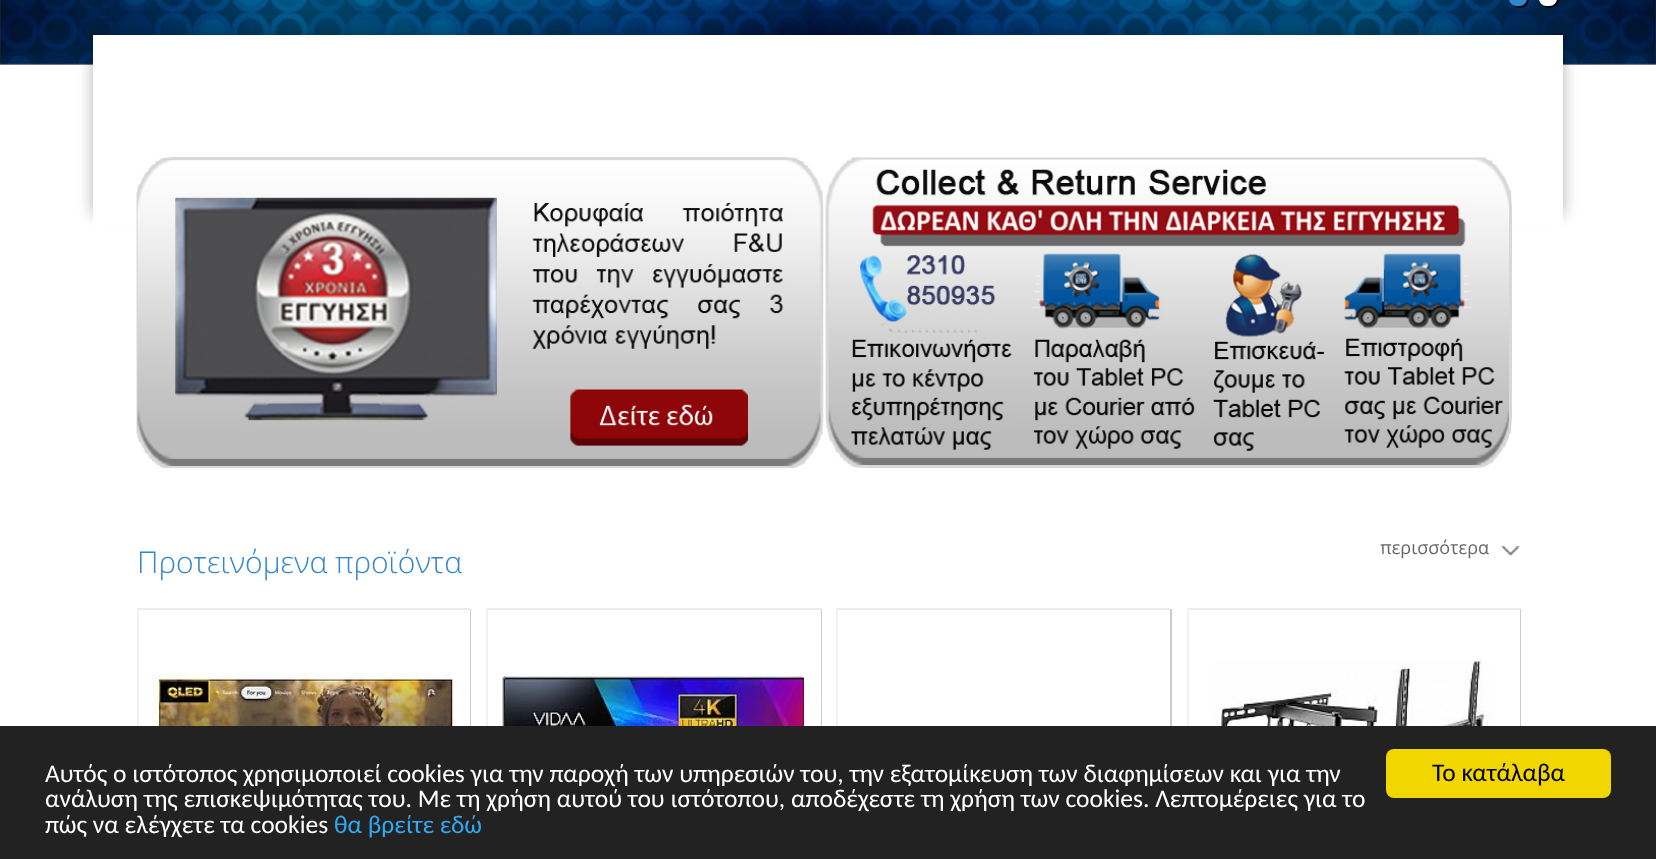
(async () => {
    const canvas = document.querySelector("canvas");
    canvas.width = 1656;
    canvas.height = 859;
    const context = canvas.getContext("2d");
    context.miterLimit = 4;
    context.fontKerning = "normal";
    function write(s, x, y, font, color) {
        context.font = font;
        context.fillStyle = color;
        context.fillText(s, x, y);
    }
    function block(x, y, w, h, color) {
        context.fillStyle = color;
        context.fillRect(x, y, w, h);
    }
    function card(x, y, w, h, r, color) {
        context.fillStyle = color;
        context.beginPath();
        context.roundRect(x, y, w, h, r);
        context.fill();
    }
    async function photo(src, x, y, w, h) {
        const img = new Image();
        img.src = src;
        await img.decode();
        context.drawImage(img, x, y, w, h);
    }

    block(0, 0, 1656, 859, "rgb(255, 255, 255)");
    await photo("media/1.png", 0, 0, 1656, 65);
    context.fillStyle = "rgb(0, 0, 0)";
    context.beginPath();
    context.moveTo(1512.5, 4.5);
    context.bezierCurveTo(1516, 8.5, 1522.5, 9, 1526.5, 5.5);
    context.bezierCurveTo(1530, 1.5, 1529.5, -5, 1525.5, -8.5);
    context.bezierCurveTo(1531, 0, 1521, 10, 1512.5, 4.5);
    context.closePath();
    context.fill();
    card(1509, -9, 18, 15, 9, "rgb(50, 134, 206)");
    context.fillStyle = "rgb(0, 0, 0)";
    context.beginPath();
    context.moveTo(1542.5, 4.5);
    context.bezierCurveTo(1546, 8.5, 1552.5, 9, 1556.5, 5.5);
    context.bezierCurveTo(1560, 1.5, 1559.5, -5, 1555.5, -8.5);
    context.bezierCurveTo(1561, 0, 1551, 10, 1542.5, 4.5);
    context.closePath();
    context.fill();
    card(1539, -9, 18, 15, 9, "rgb(255, 255, 255)");
    context.fillStyle = "rgba(0, 0, 0, 0.3)";
    context.filter = "blur(7.5px)";
    context.beginPath();
    context.rect(93, 35, 1470, 180);
    context.fill();
    context.filter = "none";
    block(93, 35, 1470, 194, "rgb(255, 255, 255)");
    await photo("media/2.png", 136, 157, 688, 311);
    await photo("media/3.png", 823, 157, 689, 311);
    write("Προτεινόμενα προϊόντα", 137, 573, "300 30px Open Sans", "rgb(50, 134, 206)");
    await photo("media/4.png", 1501, 546, 19, 10);
    write("περισσότερα", 1380, 554, "18px Open Sans", "rgb(102, 102, 102)");
    context.fillStyle = "rgb(204, 204, 204)";
    context.beginPath();
    context.moveTo(138, 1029);
    context.lineTo(138, 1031);
    context.lineTo(471, 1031);
    context.lineTo(471, 609);
    context.lineTo(470, 609);
    context.lineTo(470, 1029);
    context.closePath();
    context.fill();
    block(137, 608, 333, 2, "rgb(235, 235, 235)");
    block(137, 608, 2, 118, "rgb(242, 242, 242)");
    await photo("media/5.png", 153, 673, 302, 53);
    context.fillStyle = "rgb(204, 204, 204)";
    context.beginPath();
    context.moveTo(488, 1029);
    context.lineTo(488, 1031);
    context.lineTo(822, 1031);
    context.lineTo(822, 609);
    context.lineTo(820, 609);
    context.lineTo(820, 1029);
    context.closePath();
    context.fill();
    block(820, 610, 1, 116, "rgb(255, 255, 255)");
    block(486, 608, 335, 2, "rgb(235, 235, 235)");
    block(486, 608, 2, 118, "rgb(242, 242, 242)");
    await photo("media/6.png", 502, 676, 302, 50);
    context.fillStyle = "rgb(204, 204, 204)";
    context.beginPath();
    context.moveTo(837, 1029);
    context.lineTo(837, 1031);
    context.lineTo(1172, 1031);
    context.lineTo(1172, 609);
    context.lineTo(1170, 609);
    context.lineTo(1170, 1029);
    context.closePath();
    context.fill();
    block(836, 608, 334, 2, "rgb(235, 235, 235)");
    block(836, 608, 2, 118, "rgb(242, 242, 242)");
    context.fillStyle = "rgb(204, 204, 204)";
    context.beginPath();
    context.moveTo(1188, 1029);
    context.lineTo(1188, 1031);
    context.lineTo(1521, 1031);
    context.lineTo(1521, 609);
    context.lineTo(1520, 609);
    context.lineTo(1520, 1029);
    context.closePath();
    context.fill();
    block(1187, 608, 333, 2, "rgb(235, 235, 235)");
    block(1187, 608, 2, 118, "rgb(242, 242, 242)");
    await photo("media/7.png", 1212, 659, 280, 67);
    block(0, 726, 1656, 133, "rgb(34, 34, 34)");
    write("Αυτός ο ιστότοπος χρησιμοποιεί cookies για την παροχή των υπηρεσιών του, την εξατομίκευση των διαφημίσεων και για την", 45, 782, "25.5px Carlito", "rgb(255, 255, 255)");
    write("ανάλυση της επισκεψιμότητας του. Με τη χρήση αυτού του ιστότοπου, αποδέχεστε τη χρήση των cookies. Λεπτομέρειες για το", 45, 807, "25.5px Carlito", "rgb(255, 255, 255)");
    write("πώς να ελέγχετε τα cookies", 45, 833, "25.5px Carlito", "rgb(255, 255, 255)");
    write("θα βρείτε εδώ", 334, 833, "25.5px Carlito", "rgb(49, 168, 240)");
    card(1386, 749, 225, 49, 8, "rgb(241, 214, 0)");
    write("Το κατάλαβα", 1432, 781, "25.5px Carlito", "rgb(0, 0, 0)");
})();
